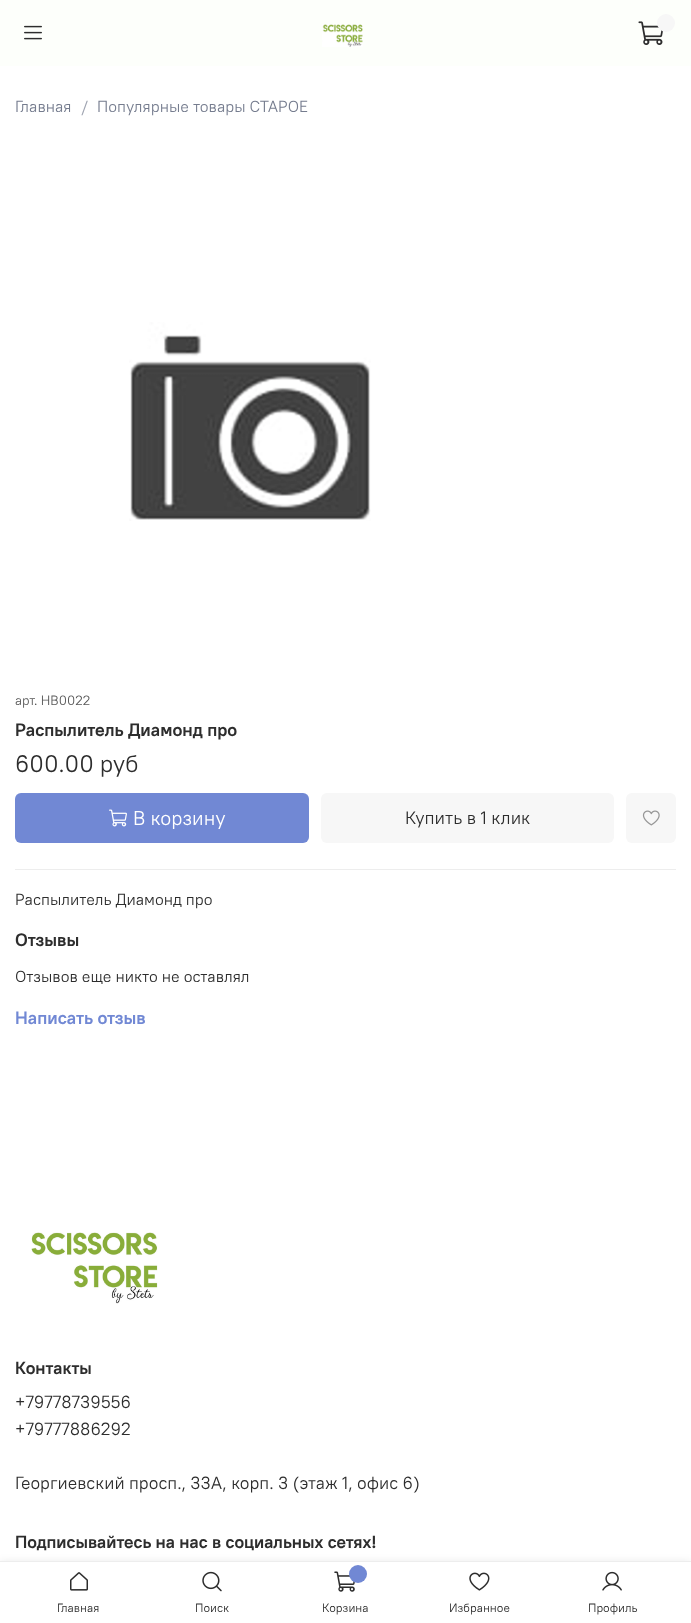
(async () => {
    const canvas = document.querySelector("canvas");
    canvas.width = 691;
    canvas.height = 1623;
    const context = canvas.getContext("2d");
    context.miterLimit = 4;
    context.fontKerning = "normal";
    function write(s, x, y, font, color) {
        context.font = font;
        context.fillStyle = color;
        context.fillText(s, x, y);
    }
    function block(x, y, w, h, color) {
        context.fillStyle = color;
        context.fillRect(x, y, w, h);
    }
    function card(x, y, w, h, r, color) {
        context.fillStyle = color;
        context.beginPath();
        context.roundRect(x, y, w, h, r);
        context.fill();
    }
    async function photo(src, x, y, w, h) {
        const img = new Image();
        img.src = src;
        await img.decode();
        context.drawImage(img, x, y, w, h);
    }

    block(0, 0, 691, 1623, "rgb(255, 255, 255)");
    block(0, 0, 691, 66, "rgb(253, 255, 251)");
    await photo("media/1.png", 24, 25, 18, 15);
    await photo("media/2.png", 322, 24, 41, 23);
    await photo("media/3.png", 638, 21, 25, 24);
    context.fillStyle = "rgb(247, 247, 247)";
    context.beginPath();
    context.arc(666, 23, 9, 0, Math.PI * 2);
    context.fill();
    write("Главная", 15, 112, "16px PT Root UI", "rgb(117, 124, 142)");
    write("/", 81, 112, "16px PT Root UI", "rgb(158, 163, 176)");
    write("Популярные товары СТАРОЕ", 97, 112, "16px PT Root UI", "rgb(117, 124, 142)");
    await photo("media/4.png", 129, 322, 242, 199);
    write("арт. HB0022", 15, 705, "13.5px PT Root UI", "rgb(88, 88, 88)");
    write("Распылитель Диамонд про", 15, 736, "bold 18px PT Root UI", "rgb(45, 45, 45)");
    write("600.00 руб", 15, 772, "24px PT Root UI", "rgb(45, 45, 45)");
    card(15, 793, 294, 50, 6, "rgb(113, 136, 212)");
    await photo("media/5.png", 109, 809, 18, 18);
    write("В корзину", 133, 825, "20px PT Root UI", "rgb(255, 255, 255)");
    card(321, 793, 293, 50, 6, "rgb(247, 247, 247)");
    write("Купить в 1 клик", 405, 824, "18px PT Root UI", "rgb(45, 45, 45)");
    card(626, 793, 50, 50, 6, "rgb(247, 247, 247)");
    await photo("media/6.png", 642, 810, 18, 16);
    block(15, 869, 661, 1, "rgb(237, 237, 237)");
    write("Распылитель Диамонд про", 15, 905, "16px PT Root UI", "rgb(45, 45, 45)");
    write("Отзывы", 15, 946, "bold 18px PT Root UI", "rgb(45, 45, 45)");
    write("Отзывов еще никто не оставлял", 15, 982, "16px PT Root UI", "rgb(45, 45, 45)");
    write("Написать отзыв", 15, 1024, "bold 18px PT Root UI", "rgb(113, 136, 212)");
    await photo("media/7.png", 31, 1232, 127, 72);
    write("Контакты", 15, 1374, "bold 17.6px PT Root UI", "rgb(45, 45, 45)");
    write("+79778739556", 15, 1408, "17.6px PT Root UI", "rgb(45, 45, 45)");
    write("+79777886292", 15, 1435, "17.6px PT Root UI", "rgb(45, 45, 45)");
    write("Георгиевский просп., 33А, корп. 3 (этаж 1, офис 6)", 15, 1489, "17.6px PT Root UI", "rgb(45, 45, 45)");
    write("Подписывайтесь на нас в социальных сетях!", 15, 1548, "bold 17.6px PT Root UI", "rgb(45, 45, 45)");
    context.fillStyle = "rgba(0, 0, 0, 0.12)";
    context.filter = "blur(5px)";
    context.beginPath();
    context.rect(0, 1563, 691, 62);
    context.fill();
    context.filter = "none";
    block(0, 1562, 691, 61, "rgb(255, 255, 255)");
    block(0, 1561, 691, 1, "rgb(237, 237, 237)");
    await photo("media/8.png", 70, 1572, 18, 19);
    write("Главная", 57, 1612, "12px PT Root UI", "rgb(45, 45, 45)");
    await photo("media/9.png", 202, 1571, 20, 21);
    write("Поиск", 195, 1612, "12px PT Root UI", "rgb(45, 45, 45)");
    await photo("media/10.png", 334, 1571, 21, 21);
    context.fillStyle = "rgb(113, 136, 212)";
    context.beginPath();
    context.arc(358, 1574, 9, 0, Math.PI * 2);
    context.fill();
    write("Корзина", 322, 1612, "12px PT Root UI", "rgb(45, 45, 45)");
    await photo("media/11.png", 469, 1572, 21, 19);
    write("Избранное", 449, 1612, "12px PT Root UI", "rgb(45, 45, 45)");
    await photo("media/12.png", 602, 1571, 20, 20);
    write("Профиль", 588, 1612, "12px PT Root UI", "rgb(45, 45, 45)");
})();
